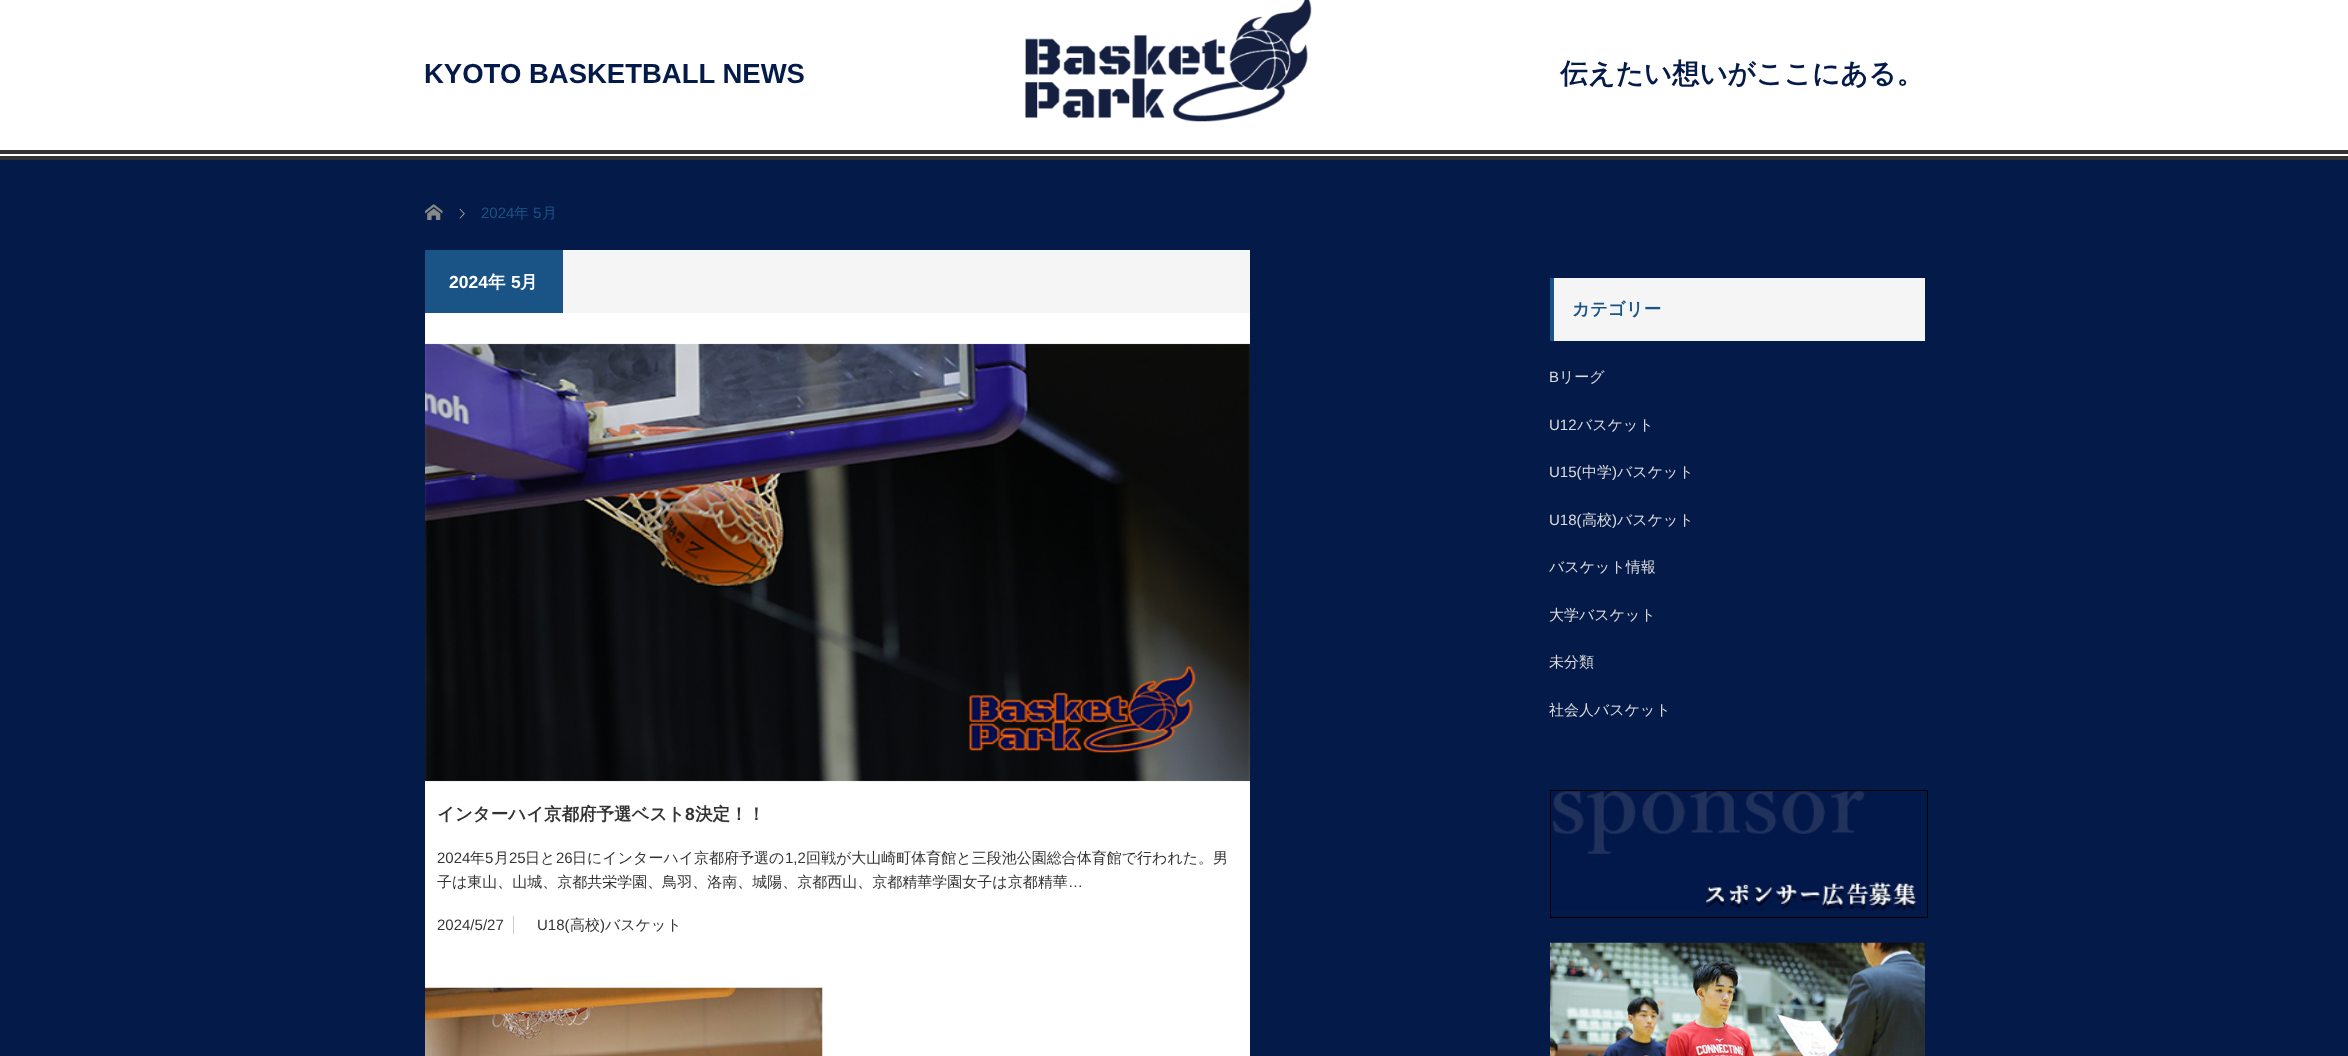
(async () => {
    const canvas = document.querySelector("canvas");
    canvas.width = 2348;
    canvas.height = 1056;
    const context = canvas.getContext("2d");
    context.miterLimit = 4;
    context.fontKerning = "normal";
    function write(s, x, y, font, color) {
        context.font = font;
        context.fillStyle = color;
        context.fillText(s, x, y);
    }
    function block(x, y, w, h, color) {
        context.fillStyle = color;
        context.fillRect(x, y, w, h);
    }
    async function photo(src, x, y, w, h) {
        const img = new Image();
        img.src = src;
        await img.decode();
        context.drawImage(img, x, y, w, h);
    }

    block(0, 0, 2348, 1056, "rgb(4, 26, 73)");
    block(0, 0, 2348, 156, "rgb(255, 255, 255)");
    block(0, 150, 2348, 4, "rgb(51, 51, 51)");
    block(0, 156, 2348, 4, "rgb(51, 51, 51)");
    write("KYOTO BASKETBALL NEWS", 424, 83, "bold 27.5px Liberation Sans", "rgb(4, 26, 73)");
    await photo("media/1.png", 1025, 0, 287, 122);
    write("伝えたい想いがここにある。", 1560, 83, "bold 27.5px WenQuanYi Zen Hei", "rgb(4, 26, 73)");
    await photo("media/2.png", 425, 204, 18, 16);
    await photo("media/3.png", 459, 208, 6, 11);
    write("2024", 481, 218, "15px Liberation Sans", "rgb(26, 84, 135)");
    write("年", 514, 218, "500 15px WenQuanYi Zen Hei", "rgb(26, 84, 135)");
    write("5", 533, 218, "15px Liberation Sans", "rgb(26, 84, 135)");
    write("月", 542, 218, "500 15px WenQuanYi Zen Hei", "rgb(26, 84, 135)");
    block(425, 313, 825, 743, "rgb(255, 255, 255)");
    block(563, 250, 687, 63, "rgb(245, 245, 245)");
    block(425, 250, 138, 63, "rgb(26, 84, 135)");
    write("2024", 449, 288, "bold 17.5px Liberation Sans", "rgb(255, 255, 255)");
    write("年", 488, 288, "bold 17.5px WenQuanYi Zen Hei", "rgb(255, 255, 255)");
    write("5", 511, 288, "bold 17.5px Liberation Sans", "rgb(255, 255, 255)");
    write("月", 520, 288, "bold 17.5px WenQuanYi Zen Hei", "rgb(255, 255, 255)");
    await photo("media/4.png", 425, 343, 825, 439);
    write("インターハイ京都府予選ベスト", 437, 820, "bold 17.5px WenQuanYi Zen Hei", "rgb(51, 51, 51)");
    write("8", 685, 820, "bold 17.5px Liberation Sans", "rgb(51, 51, 51)");
    write("決定！！", 695, 820, "bold 17.5px WenQuanYi Zen Hei", "rgb(51, 51, 51)");
    write("2024", 437, 863, "15px Liberation Sans", "rgb(51, 51, 51)");
    write("年", 470, 863, "500 15px WenQuanYi Zen Hei", "rgb(51, 51, 51)");
    write("5", 485, 863, "15px Liberation Sans", "rgb(51, 51, 51)");
    write("月", 494, 863, "500 15px WenQuanYi Zen Hei", "rgb(51, 51, 51)");
    write("25", 509, 863, "15px Liberation Sans", "rgb(51, 51, 51)");
    write("日と", 525, 863, "500 15px WenQuanYi Zen Hei", "rgb(51, 51, 51)");
    write("26", 556, 863, "15px Liberation Sans", "rgb(51, 51, 51)");
    write("日にインターハイ京都府予選の", 572, 863, "500 15px WenQuanYi Zen Hei", "rgb(51, 51, 51)");
    write("1,2", 785, 863, "15px Liberation Sans", "rgb(51, 51, 51)");
    write("回戦が大山崎町体育館と三段池公園総合体育館で行われた。男", 806, 863, "500 15px WenQuanYi Zen Hei", "rgb(51, 51, 51)");
    write("子は東山、山城、京都共栄学園、鳥羽、洛南、城陽、京都西山、京都精華学園女子は京都精華", 437, 887, "500 15px WenQuanYi Zen Hei", "rgb(51, 51, 51)");
    write("…", 1068, 887, "15px Liberation Sans", "rgb(51, 51, 51)");
    write("2024/5/27", 437, 930, "15px Liberation Sans", "rgb(51, 51, 51)");
    block(513, 916, 1, 18, "rgb(204, 204, 204)");
    write("U18(", 537, 930, "15px Liberation Sans", "rgb(51, 51, 51)");
    write("高校", 570, 930, "500 15px WenQuanYi Zen Hei", "rgb(51, 51, 51)");
    write(")", 600, 930, "15px Liberation Sans", "rgb(51, 51, 51)");
    write("バスケット", 605, 930, "500 15px WenQuanYi Zen Hei", "rgb(51, 51, 51)");
    await photo("media/5.png", 425, 987, 398, 69);
    block(1554, 278, 371, 63, "rgb(245, 245, 245)");
    block(1550, 278, 4, 63, "rgb(26, 84, 135)");
    write("カテゴリー", 1572, 315, "bold 17.5px WenQuanYi Zen Hei", "rgb(26, 84, 135)");
    write("B", 1549, 382, "15px Liberation Sans", "rgb(221, 221, 221)");
    write("リーグ", 1559, 382, "500 15px WenQuanYi Zen Hei", "rgb(221, 221, 221)");
    write("U12", 1549, 430, "15px Liberation Sans", "rgb(221, 221, 221)");
    write("バスケット", 1577, 430, "500 15px WenQuanYi Zen Hei", "rgb(221, 221, 221)");
    write("U15(", 1549, 477, "15px Liberation Sans", "rgb(221, 221, 221)");
    write("中学", 1582, 477, "500 15px WenQuanYi Zen Hei", "rgb(221, 221, 221)");
    write(")", 1612, 477, "15px Liberation Sans", "rgb(221, 221, 221)");
    write("バスケット", 1617, 477, "500 15px WenQuanYi Zen Hei", "rgb(221, 221, 221)");
    write("U18(", 1549, 525, "15px Liberation Sans", "rgb(221, 221, 221)");
    write("高校", 1582, 525, "500 15px WenQuanYi Zen Hei", "rgb(221, 221, 221)");
    write(")", 1612, 525, "15px Liberation Sans", "rgb(221, 221, 221)");
    write("バスケット", 1617, 525, "500 15px WenQuanYi Zen Hei", "rgb(221, 221, 221)");
    write("バスケット情報", 1549, 572, "500 15px WenQuanYi Zen Hei", "rgb(221, 221, 221)");
    write("大学バスケット", 1549, 620, "500 15px WenQuanYi Zen Hei", "rgb(221, 221, 221)");
    write("未分類", 1549, 667, "500 15px WenQuanYi Zen Hei", "rgb(221, 221, 221)");
    write("社会人バスケット", 1549, 715, "500 15px WenQuanYi Zen Hei", "rgb(221, 221, 221)");
    context.strokeStyle = "rgb(0, 0, 0)";
    context.strokeRect(1550.5, 790.5, 377, 127);
    await photo("media/6.png", 1552, 791, 369, 120);
    await photo("media/7.png", 1550, 942, 375, 114);
})();
